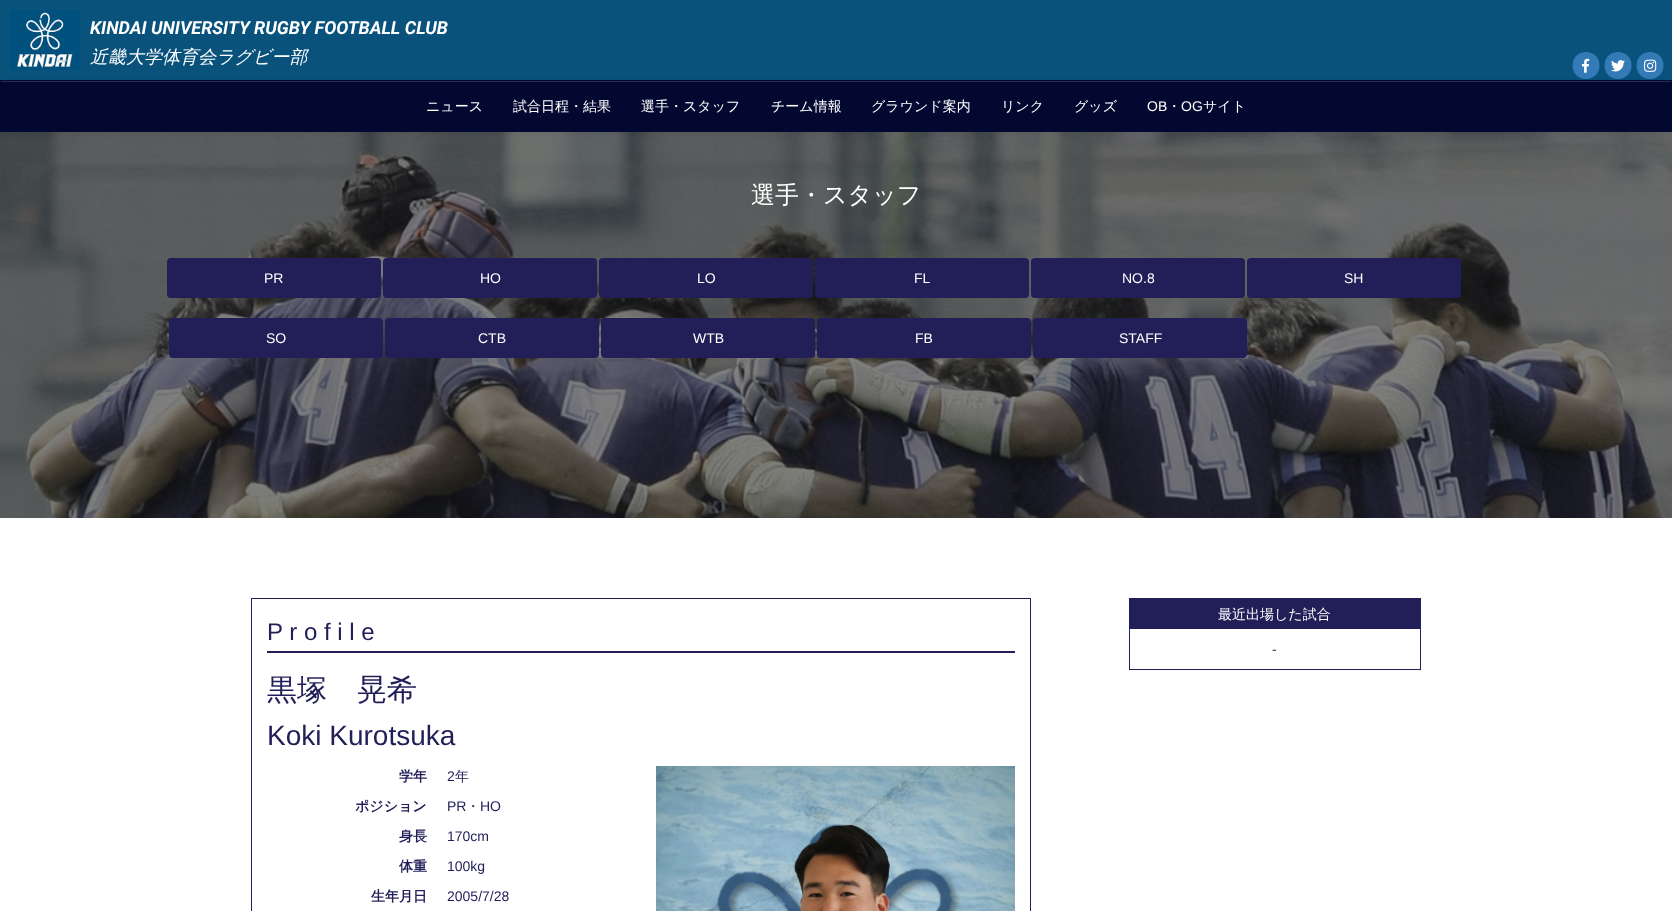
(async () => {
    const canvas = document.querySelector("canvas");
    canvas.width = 1672;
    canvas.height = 911;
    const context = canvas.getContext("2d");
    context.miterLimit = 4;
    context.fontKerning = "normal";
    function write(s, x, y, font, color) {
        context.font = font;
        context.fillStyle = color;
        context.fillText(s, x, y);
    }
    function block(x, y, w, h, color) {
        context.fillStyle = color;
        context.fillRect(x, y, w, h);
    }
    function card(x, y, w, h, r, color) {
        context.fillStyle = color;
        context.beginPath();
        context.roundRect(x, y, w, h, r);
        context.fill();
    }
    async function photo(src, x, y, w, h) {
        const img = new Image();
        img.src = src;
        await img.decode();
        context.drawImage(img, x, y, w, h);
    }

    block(0, 0, 1672, 911, "rgb(255, 255, 255)");
    block(0, 0, 1672, 80, "rgb(8, 82, 124)");
    await photo("media/1.png", 10, 10, 70, 60);
    write("KINDAI UNIVERSITY RUGBY FOOTBALL CLUB", 90, 34, "italic bold 18px Roboto", "rgb(255, 255, 255)");
    write("近畿大学体育会ラグビー部", 90, 63, "italic 500 18px WenQuanYi Zen Hei", "rgb(255, 255, 255)");
    context.fillStyle = "rgb(51, 122, 183)";
    context.beginPath();
    context.moveTo(1586, 52);
    context.bezierCurveTo(1568, 52, 1568, 79, 1586, 79);
    context.bezierCurveTo(1604, 79, 1604, 52, 1586, 52);
    context.closePath();
    context.fill();
    await photo("media/2.png", 1582, 58, 8, 15);
    context.beginPath();
    context.moveTo(1618, 52);
    context.bezierCurveTo(1600, 52, 1600, 79, 1618, 79);
    context.bezierCurveTo(1636, 79, 1636, 52, 1618, 52);
    context.closePath();
    context.fill();
    await photo("media/3.png", 1611, 60, 14, 12);
    context.beginPath();
    context.moveTo(1650, 52);
    context.bezierCurveTo(1632, 52, 1632, 79, 1650, 79);
    context.bezierCurveTo(1668, 79, 1668, 52, 1650, 52);
    context.closePath();
    context.fill();
    await photo("media/4.png", 1644, 59, 13, 13);
    await photo("media/5.png", 0, 132, 1672, 386);
    context.fillStyle = "rgba(0, 0, 0, 0.07)";
    context.filter = "blur(2.5px)";
    context.beginPath();
    context.rect(0, 81, 1672, 52);
    context.fill();
    context.filter = "none";
    block(0, 80, 1672, 52, "rgb(3, 8, 48)");
    block(1, 81, 1670, 1, "rgb(41, 45, 79)");
    write("ニュース", 426, 111, "500 14px WenQuanYi Zen Hei", "rgb(255, 255, 255)");
    write("試合日程・結果", 513, 111, "500 14px WenQuanYi Zen Hei", "rgb(255, 255, 255)");
    write("選手・スタッフ", 641, 111, "500 14px WenQuanYi Zen Hei", "rgb(255, 255, 255)");
    write("チーム情報", 771, 111, "500 14px WenQuanYi Zen Hei", "rgb(255, 255, 255)");
    write("グラウンド案内", 871, 111, "500 14px WenQuanYi Zen Hei", "rgb(255, 255, 255)");
    write("リンク", 1001, 111, "500 14px WenQuanYi Zen Hei", "rgb(255, 255, 255)");
    write("グッズ", 1074, 111, "500 14px WenQuanYi Zen Hei", "rgb(255, 255, 255)");
    write("OB", 1147, 111, "14px Liberation Sans", "rgb(255, 255, 255)");
    write("・", 1167, 111, "500 14px WenQuanYi Zen Hei", "rgb(255, 255, 255)");
    write("OG", 1181, 111, "14px Liberation Sans", "rgb(255, 255, 255)");
    write("サイト", 1203, 111, "500 14px WenQuanYi Zen Hei", "rgb(255, 255, 255)");
    write("選手・スタッフ", 751, 203, "500 24px WenQuanYi Zen Hei", "rgb(255, 255, 255)");
    card(167, 258, 214, 40, 4, "rgb(33, 30, 88)");
    write("PR", 264, 283, "14px Liberation Sans", "rgb(255, 255, 255)");
    card(383, 258, 214, 40, 4, "rgb(33, 30, 88)");
    write("HO", 480, 283, "14px Liberation Sans", "rgb(255, 255, 255)");
    card(599, 258, 214, 40, 4, "rgb(33, 30, 88)");
    write("LO", 697, 283, "14px Liberation Sans", "rgb(255, 255, 255)");
    card(815, 258, 214, 40, 4, "rgb(33, 30, 88)");
    write("FL", 914, 283, "14px Liberation Sans", "rgb(255, 255, 255)");
    card(1031, 258, 214, 40, 4, "rgb(33, 30, 88)");
    write("NO.8", 1122, 283, "14px Liberation Sans", "rgb(255, 255, 255)");
    card(1247, 258, 214, 40, 4, "rgb(33, 30, 88)");
    write("SH", 1344, 283, "14px Liberation Sans", "rgb(255, 255, 255)");
    card(169, 318, 214, 40, 4, "rgb(33, 30, 88)");
    write("SO", 266, 343, "14px Liberation Sans", "rgb(255, 255, 255)");
    card(385, 318, 214, 40, 4, "rgb(33, 30, 88)");
    write("CTB", 478, 343, "14px Liberation Sans", "rgb(255, 255, 255)");
    card(601, 318, 214, 40, 4, "rgb(33, 30, 88)");
    write("WTB", 693, 343, "14px Liberation Sans", "rgb(255, 255, 255)");
    card(817, 318, 214, 40, 4, "rgb(33, 30, 88)");
    write("FB", 915, 343, "14px Liberation Sans", "rgb(255, 255, 255)");
    card(1033, 318, 214, 40, 4, "rgb(33, 30, 88)");
    write("STAFF", 1119, 343, "14px Liberation Sans", "rgb(255, 255, 255)");
    context.strokeStyle = "rgb(33, 30, 88)";
    context.strokeRect(251.5, 598.5, 779, 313);
    block(267, 651, 748, 2, "rgb(33, 30, 88)");
    write("P r o f i l e", 267, 640, "24px Liberation Sans", "rgb(33, 30, 88)");
    write("黒塚　晃希", 267, 700, "500 30px WenQuanYi Zen Hei", "rgb(33, 30, 88)");
    write("Koki Kurotsuka", 267, 745, "28px Liberation Sans", "rgb(33, 30, 88)");
    write("学年", 399, 781, "bold 14px WenQuanYi Zen Hei", "rgb(33, 30, 88)");
    write("2", 447, 781, "14px Liberation Sans", "rgb(33, 30, 88)");
    write("年", 455, 781, "500 14px WenQuanYi Zen Hei", "rgb(33, 30, 88)");
    write("ポジション", 355, 811, "bold 14px WenQuanYi Zen Hei", "rgb(33, 30, 88)");
    write("PR", 447, 811, "14px Liberation Sans", "rgb(33, 30, 88)");
    write("・", 466, 811, "500 14px WenQuanYi Zen Hei", "rgb(33, 30, 88)");
    write("HO", 480, 811, "14px Liberation Sans", "rgb(33, 30, 88)");
    write("身長", 399, 841, "bold 14px WenQuanYi Zen Hei", "rgb(33, 30, 88)");
    write("170cm", 447, 841, "14px Liberation Sans", "rgb(33, 30, 88)");
    write("体重", 399, 871, "bold 14px WenQuanYi Zen Hei", "rgb(33, 30, 88)");
    write("100kg", 447, 871, "14px Liberation Sans", "rgb(33, 30, 88)");
    write("生年月日", 371, 901, "bold 14px WenQuanYi Zen Hei", "rgb(33, 30, 88)");
    write("2005/7/28", 447, 901, "14px Liberation Sans", "rgb(33, 30, 88)");
    await photo("media/6.png", 656, 766, 359, 145);
    context.strokeRect(1129.5, 598.5, 291, 71);
    block(1130, 599, 290, 30, "rgb(33, 30, 88)");
    write("最近出場した試合", 1218, 619, "500 14px WenQuanYi Zen Hei", "rgb(255, 255, 255)");
    write("-", 1272, 654, "14px Liberation Sans", "rgb(51, 51, 51)");
})();
